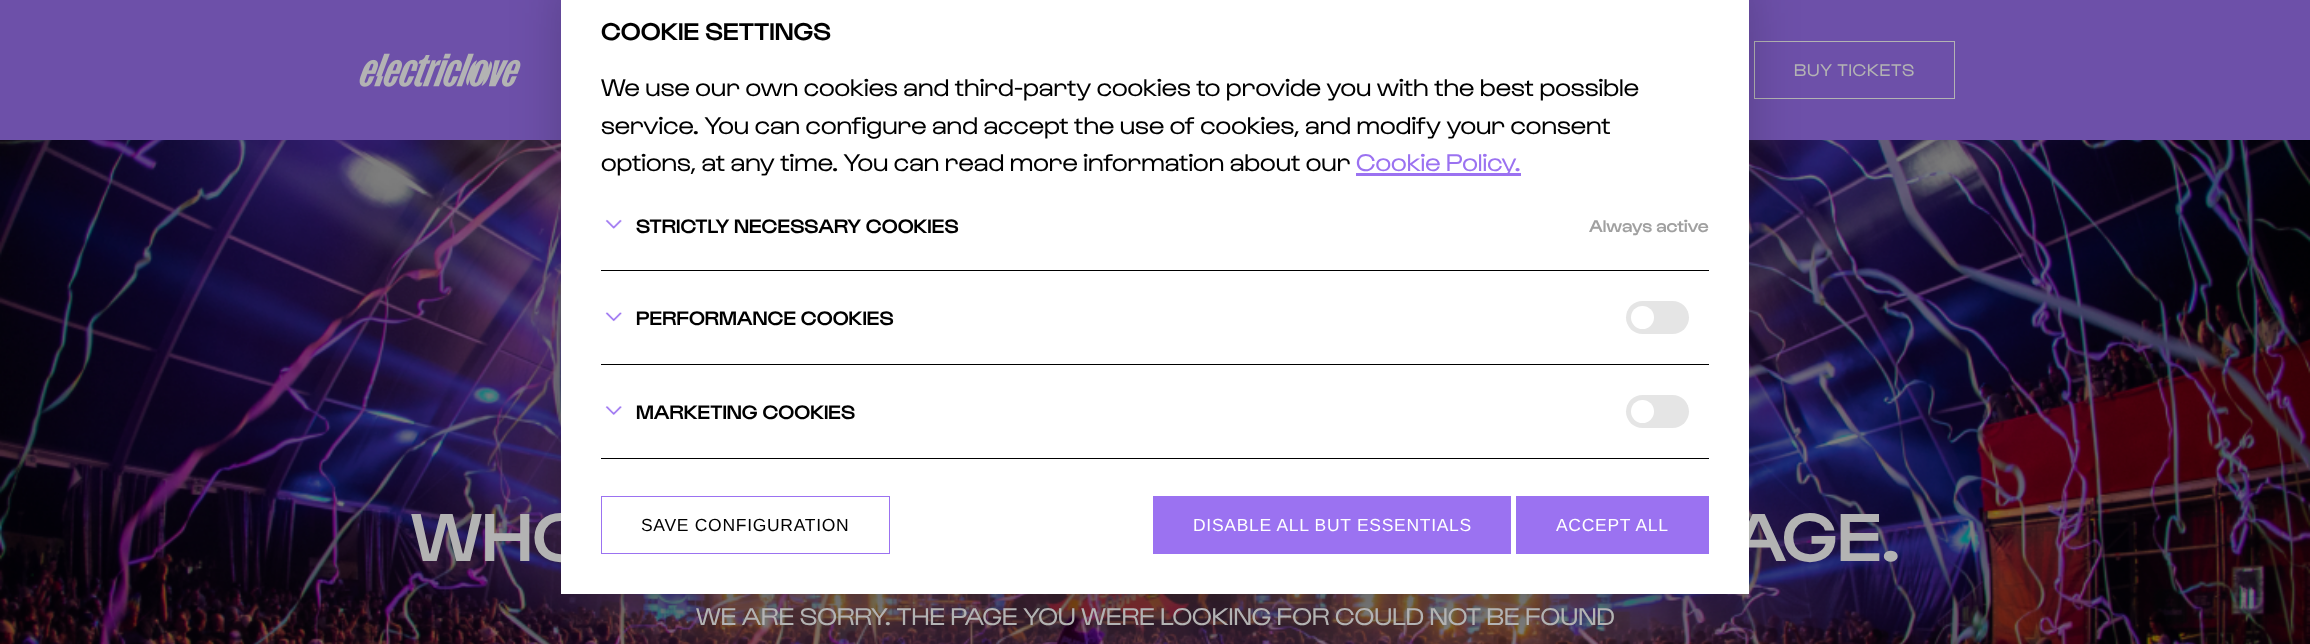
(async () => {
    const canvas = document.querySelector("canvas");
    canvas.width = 2310;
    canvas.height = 644;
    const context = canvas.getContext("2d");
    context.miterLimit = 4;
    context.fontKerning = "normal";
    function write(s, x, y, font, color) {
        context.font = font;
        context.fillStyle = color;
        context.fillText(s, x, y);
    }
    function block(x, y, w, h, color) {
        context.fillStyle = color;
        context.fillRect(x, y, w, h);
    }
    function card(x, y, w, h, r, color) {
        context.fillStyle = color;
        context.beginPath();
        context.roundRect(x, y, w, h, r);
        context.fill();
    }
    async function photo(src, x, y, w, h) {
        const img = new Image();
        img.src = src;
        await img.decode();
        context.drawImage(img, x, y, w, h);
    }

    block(0, 0, 2310, 644, "rgb(255, 255, 255)");
    block(0, 0, 2310, 140, "rgb(109, 80, 169)");
    await photo("media/4.png", 359, 53, 162, 34);
    context.strokeStyle = "rgb(179, 179, 179)";
    context.strokeRect(1754.5, 41.5, 200, 57);
    await photo("media/5.png", 0, 140, 2310, 504);
    context.fillStyle = "rgba(0, 0, 0, 0.2)";
    context.filter = "blur(25px)";
    context.beginPath();
    context.rect(561, -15, 1188, 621);
    context.fill();
    context.filter = "none";
    write("WHO", 411, 561, "500 70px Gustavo", "rgb(179, 179, 179)");
    write("AGE.", 1731, 561, "500 70px Gustavo", "rgb(179, 179, 179)");
    block(561, 0, 1188, 594, "rgb(255, 255, 255)");
    write("COOKIE SETTINGS", 601, 40, "500 25px Gustavo", "rgb(0, 0, 0)");
    write("We use our own cookies and third-party cookies to provide you with the best possible", 601, 96, "25px Gustavo", "rgb(0, 0, 0)");
    write("service. You can configure and accept the use of cookies, and modify your consent", 601, 134, "25px Gustavo", "rgb(0, 0, 0)");
    write("options, at any time. You can read more information about our", 601, 171, "25px Gustavo", "rgb(0, 0, 0)");
    block(1356, 173, 165, 3, "rgb(155, 114, 241)");
    write("Cookie Policy.", 1356, 171, "25px Gustavo", "rgb(155, 114, 241)");
    block(601, 270, 1108, 1, "rgb(0, 0, 0)");
    await photo("media/1.png", 605, 219, 17, 10);
    write("STRICTLY NECESSARY COOKIES", 636, 233, "500 20px Gustavo", "rgb(0, 0, 0)");
    write("Always active", 1589, 232, "500 17.5px Gustavo", "rgb(160, 160, 160)");
    block(601, 364, 1108, 1, "rgb(0, 0, 0)");
    await photo("media/2.png", 605, 312, 17, 10);
    write("PERFORMANCE COOKIES", 636, 325, "500 20px Gustavo", "rgb(0, 0, 0)");
    card(1626, 301, 63, 33, 16.5, "rgb(229, 229, 229)");
    context.fillStyle = "rgb(255, 255, 255)";
    context.beginPath();
    context.arc(1642.5, 317.5, 11.5, 0, Math.PI * 2);
    context.fill();
    block(601, 458, 1108, 1, "rgb(0, 0, 0)");
    await photo("media/3.png", 605, 406, 17, 9);
    write("MARKETING COOKIES", 636, 419, "500 20px Gustavo", "rgb(0, 0, 0)");
    card(1626, 395, 63, 33, 16.5, "rgb(229, 229, 229)");
    context.fillStyle = "rgb(255, 255, 255)";
    context.beginPath();
    context.arc(1642.5, 411.5, 11.5, 0, Math.PI * 2);
    context.fill();
    context.strokeStyle = "rgb(155, 114, 241)";
    context.strokeRect(601.5, 496.5, 288, 57);
    context.letterSpacing = "0.7px";
    write("SAVE CONFIGURATION", 641, 531, "17.5px Liberation Sans", "rgb(0, 0, 0)");
    block(1153, 496, 358, 58, "rgb(155, 114, 241)");
    write("DISABLE ALL BUT ESSENTIALS", 1193, 531, "17.5px Liberation Sans", "rgb(255, 255, 255)");
    block(1516, 496, 193, 58, "rgb(155, 114, 241)");
    write("ACCEPT ALL", 1556, 531, "17.5px Liberation Sans", "rgb(255, 255, 255)");
    write("BUY TICKETS", 1794, 76, "17.5px Gustavo", "rgb(179, 179, 179)");
    context.letterSpacing = "0px";
    write("WE ARE SORRY. THE PAGE YOU WERE LOOKING FOR COULD NOT BE FOUND", 696, 625, "25px Gustavo", "rgb(179, 179, 179)");
})();
